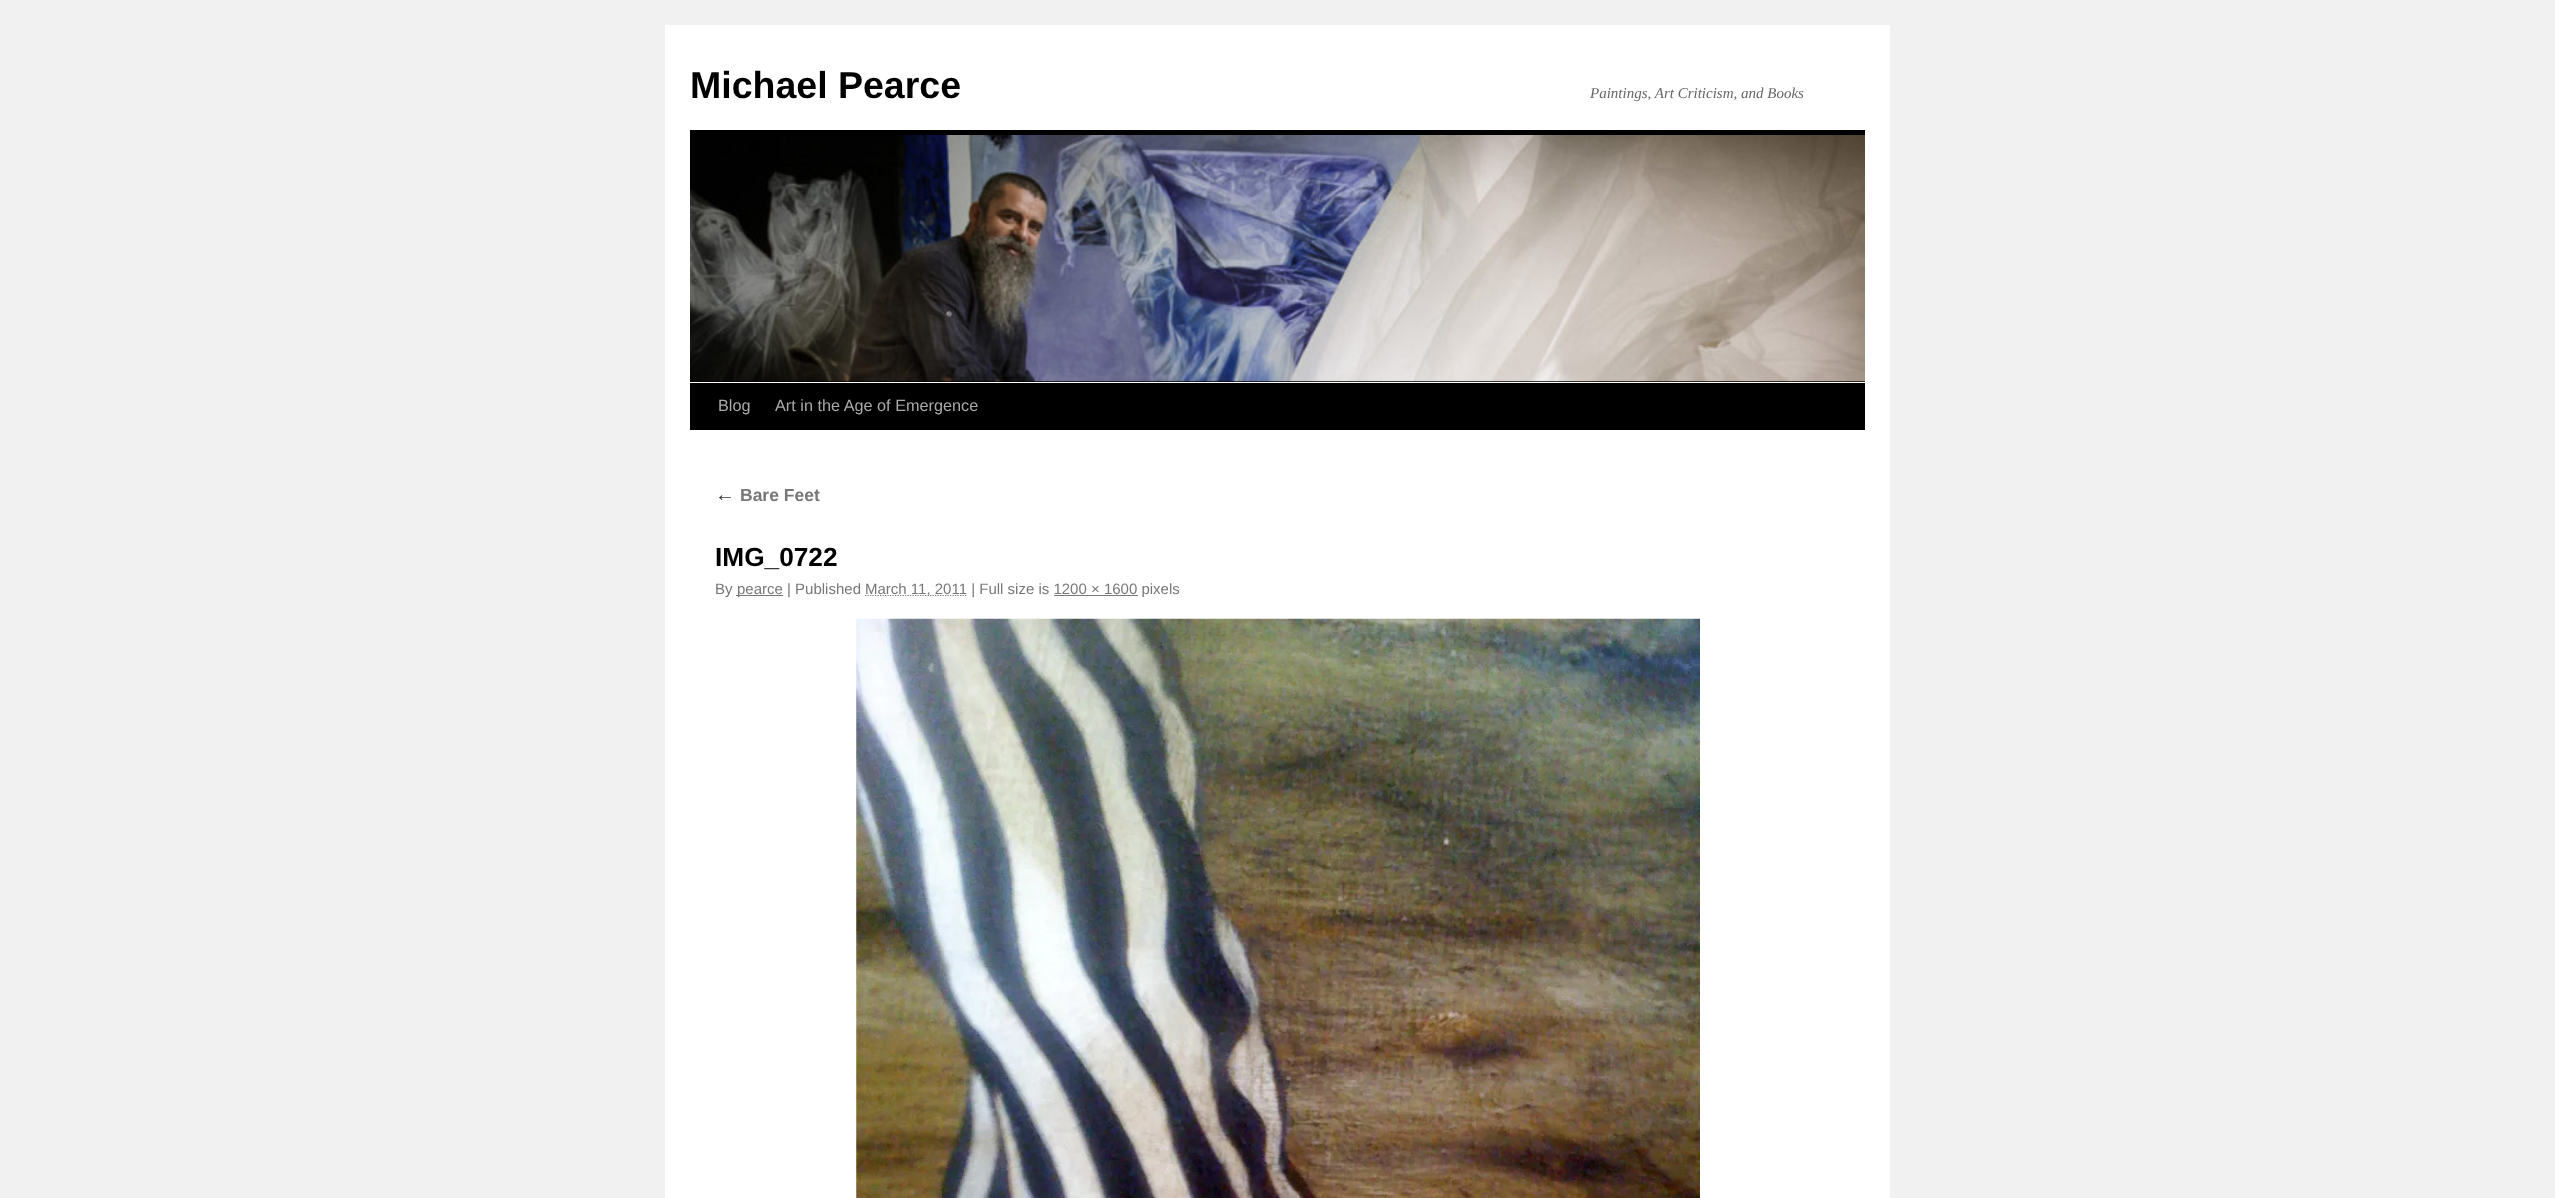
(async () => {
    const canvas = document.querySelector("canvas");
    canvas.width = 2555;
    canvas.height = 1198;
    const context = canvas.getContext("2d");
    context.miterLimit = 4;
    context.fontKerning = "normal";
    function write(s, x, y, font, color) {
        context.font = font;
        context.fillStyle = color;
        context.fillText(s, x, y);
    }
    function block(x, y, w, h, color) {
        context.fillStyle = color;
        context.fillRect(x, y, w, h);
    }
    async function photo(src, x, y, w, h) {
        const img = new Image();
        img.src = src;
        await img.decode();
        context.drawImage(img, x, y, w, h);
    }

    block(0, 0, 2555, 1198, "rgb(241, 241, 241)");
    block(665, 25, 1225, 1173, "rgb(255, 255, 255)");
    write("Michael Pearce", 690, 98, "bold 37.5px Liberation Sans", "rgb(0, 0, 0)");
    write("Paintings, Art Criticism, and Books", 1590, 98, "italic 15px Liberation Serif", "rgb(102, 102, 102)");
    block(690, 130, 1175, 5, "rgb(0, 0, 0)");
    block(690, 381, 1175, 1, "rgb(0, 0, 0)");
    await photo("media/1.png", 690, 135, 1175, 247);
    block(690, 383, 1175, 47, "rgb(0, 0, 0)");
    write("Blog", 718, 411, "16.25px Liberation Sans", "rgb(170, 170, 170)");
    write("Art in the Age of Emergence", 775, 411, "16.25px Liberation Sans", "rgb(170, 170, 170)");
    write("←", 715, 501, "italic 20px Liberation Serif", "rgb(51, 51, 51)");
    write("Bare Feet", 740, 501, "bold 17.5px Liberation Sans", "rgb(119, 119, 119)");
    write("IMG_0722", 715, 566, "bold 26.25px Liberation Sans", "rgb(0, 0, 0)");
    write("By", 715, 594, "15px Liberation Sans", "rgb(119, 119, 119)");
    block(736, 595, 47, 1, "rgb(119, 119, 119)");
    write("pearce | Published", 737, 594, "15px Liberation Sans", "rgb(119, 119, 119)");
    context.beginPath();
    context.moveTo(865, 595.5);
    context.lineTo(967, 595.5);
    context.strokeStyle = "rgb(119, 119, 119)";
    context.lineWidth = 1.2;
    context.setLineDash([1.25, 1.25]);
    context.stroke();
    write("March 11, 2011 | Full size is 1200 × 1600 pixels", 865, 594, "15px Liberation Sans", "rgb(119, 119, 119)");
    block(1054, 595, 84, 1, "rgb(119, 119, 119)");
    await photo("media/2.png", 856, 618, 844, 580);
})();
